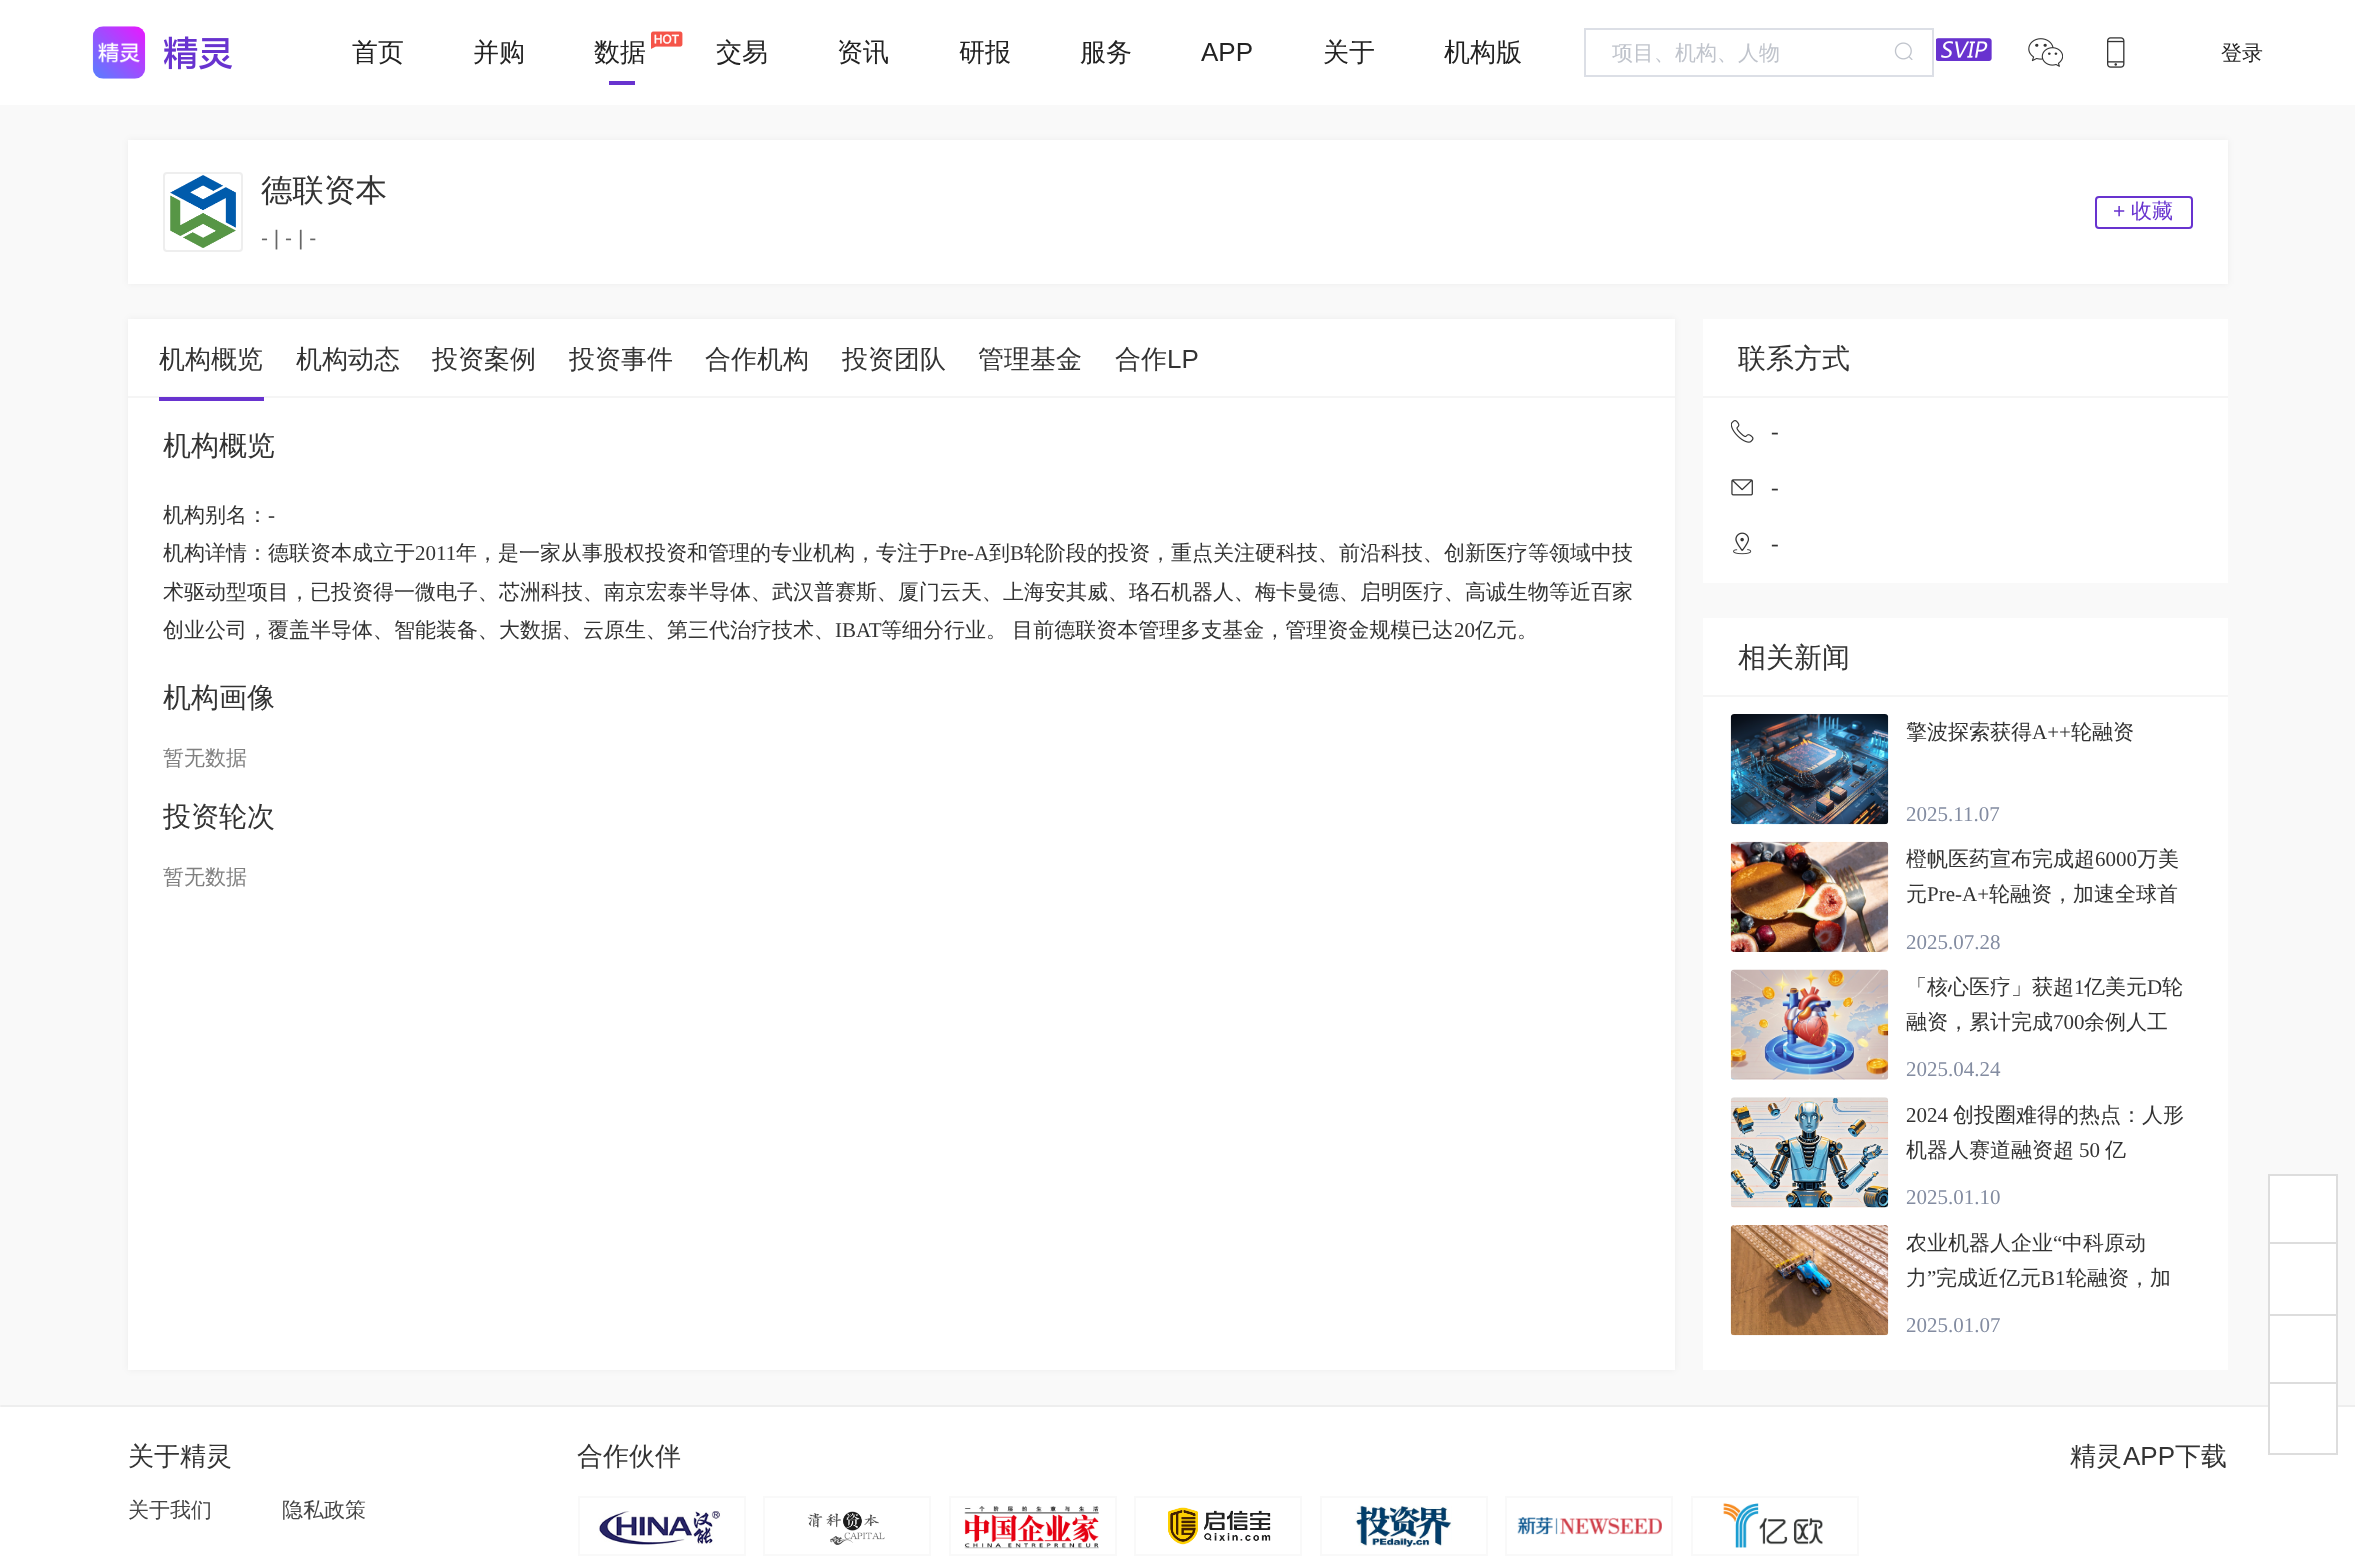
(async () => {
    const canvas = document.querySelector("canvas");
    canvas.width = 2355;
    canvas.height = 1559;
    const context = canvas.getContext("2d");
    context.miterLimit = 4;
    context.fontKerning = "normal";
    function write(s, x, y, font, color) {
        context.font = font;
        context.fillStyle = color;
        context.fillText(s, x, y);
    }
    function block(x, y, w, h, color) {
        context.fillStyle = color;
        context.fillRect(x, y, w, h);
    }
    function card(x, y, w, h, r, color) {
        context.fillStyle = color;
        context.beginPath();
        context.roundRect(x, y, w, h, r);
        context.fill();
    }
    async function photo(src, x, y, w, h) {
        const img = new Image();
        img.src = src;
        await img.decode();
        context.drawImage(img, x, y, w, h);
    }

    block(0, 0, 2355, 1559, "rgb(255, 255, 255)");
    await photo("media/1.png", 92, 26, 54, 53);
    await photo("media/2.png", 163, 36, 69, 34);
    write("首页", 352, 61, "500 26px WenQuanYi Zen Hei", "rgb(34, 34, 34)");
    write("并购", 473, 61, "500 26px WenQuanYi Zen Hei", "rgb(34, 34, 34)");
    write("数据", 594, 61, "500 26px WenQuanYi Zen Hei", "rgb(34, 34, 34)");
    await photo("media/3.png", 651, 31, 32, 18);
    block(609, 81, 26, 4, "rgb(104, 51, 207)");
    write("交易", 716, 61, "500 26px WenQuanYi Zen Hei", "rgb(34, 34, 34)");
    write("资讯", 837, 61, "500 26px WenQuanYi Zen Hei", "rgb(34, 34, 34)");
    write("研报", 959, 61, "500 26px WenQuanYi Zen Hei", "rgb(34, 34, 34)");
    write("服务", 1080, 61, "500 26px WenQuanYi Zen Hei", "rgb(34, 34, 34)");
    write("APP", 1201, 61, "26px Liberation Sans", "rgb(34, 34, 34)");
    write("关于", 1323, 61, "500 26px WenQuanYi Zen Hei", "rgb(34, 34, 34)");
    write("机构版", 1444, 61, "500 26px WenQuanYi Zen Hei", "rgb(34, 34, 34)");
    context.strokeStyle = "rgb(220, 223, 230)";
    context.lineWidth = 2;
    context.strokeRect(1585, 29, 348, 47);
    write("项目、机构、人物", 1612, 60, "500 21px WenQuanYi Zen Hei", "rgb(192, 196, 204)");
    await photo("media/4.png", 1894, 42, 19, 18);
    await photo("media/5.png", 1936, 38, 56, 23);
    await photo("media/6.png", 2028, 38, 35, 29);
    await photo("media/7.png", 2107, 37, 18, 31);
    write("登录", 2221, 60, "500 21px WenQuanYi Zen Hei", "rgb(34, 34, 34)");
    block(0, 105, 2355, 1300, "rgb(249, 249, 249)");
    context.fillStyle = "rgba(0, 0, 0, 0.05)";
    context.filter = "blur(3.5px)";
    context.beginPath();
    context.rect(128, 140, 2100, 144);
    context.fill();
    context.filter = "none";
    block(128, 140, 2100, 144, "rgb(255, 255, 255)");
    context.beginPath();
    context.roundRect(164, 173, 78, 78, 3);
    context.strokeStyle = "rgb(238, 238, 238)";
    context.stroke();
    await photo("media/8.png", 170, 175, 66, 73);
    write("德联资本", 261, 201, "500 31.5px WenQuanYi Zen Hei", "rgb(51, 51, 51)");
    write("- | - | -", 261, 245, "21px Liberation Sans", "rgb(102, 102, 102)");
    context.beginPath();
    context.roundRect(2096, 197, 96, 31, 3);
    context.strokeStyle = "rgb(104, 51, 207)";
    context.stroke();
    write("+", 2113, 218, "21px Liberation Sans", "rgb(104, 51, 207)");
    write("收藏", 2131, 218, "500 21px WenQuanYi Zen Hei", "rgb(104, 51, 207)");
    context.fillStyle = "rgba(0, 0, 0, 0.05)";
    context.filter = "blur(3.5px)";
    context.beginPath();
    context.rect(128, 319, 1547, 1051);
    context.fill();
    context.filter = "none";
    block(128, 319, 1547, 1051, "rgb(255, 255, 255)");
    block(128, 396, 1547, 2, "rgb(245, 245, 245)");
    block(159, 397, 105, 4, "rgb(104, 51, 207)");
    write("机构概览", 159, 368, "500 26px WenQuanYi Zen Hei", "rgb(51, 51, 51)");
    write("机构动态", 296, 368, "500 26px WenQuanYi Zen Hei", "rgb(51, 51, 51)");
    write("投资案例", 432, 368, "500 26px WenQuanYi Zen Hei", "rgb(51, 51, 51)");
    write("投资事件", 569, 368, "500 26px WenQuanYi Zen Hei", "rgb(51, 51, 51)");
    write("合作机构", 705, 368, "500 26px WenQuanYi Zen Hei", "rgb(51, 51, 51)");
    write("投资团队", 842, 368, "500 26px WenQuanYi Zen Hei", "rgb(51, 51, 51)");
    write("管理基金", 978, 368, "500 26px WenQuanYi Zen Hei", "rgb(51, 51, 51)");
    write("合作", 1115, 368, "500 26px WenQuanYi Zen Hei", "rgb(51, 51, 51)");
    write("LP", 1167, 368, "26px Liberation Sans", "rgb(51, 51, 51)");
    write("机构概览", 163, 455, "500 28px WenQuanYi Zen Hei", "rgb(51, 51, 51)");
    write("机构别名：", 163, 522, "500 21px WenQuanYi Zen Hei", "rgb(51, 51, 51)");
    write("-", 268, 522, "21px Liberation Serif", "rgb(51, 51, 51)");
    write("机构详情：德联资本成立于", 163, 560, "500 21px WenQuanYi Zen Hei", "rgb(51, 51, 51)");
    write("2011", 415, 560, "21px Liberation Serif", "rgb(51, 51, 51)");
    write("年，是一家从事股权投资和管理的专业机构，专注于", 456, 560, "500 21px WenQuanYi Zen Hei", "rgb(51, 51, 51)");
    write("Pre-A", 939, 560, "21px Liberation Serif", "rgb(51, 51, 51)");
    write("到", 989, 560, "500 21px WenQuanYi Zen Hei", "rgb(51, 51, 51)");
    write("B", 1010, 560, "21px Liberation Serif", "rgb(51, 51, 51)");
    write("轮阶段的投资，重点关注硬科技、前沿科技、创新医疗等领域中技", 1024, 560, "500 21px WenQuanYi Zen Hei", "rgb(51, 51, 51)");
    write("术驱动型项目，已投资得一微电子、芯洲科技、南京宏泰半导体、武汉普赛斯、厦门云天、上海安其威、珞石机器人、梅卡曼德、启明医疗、高诚生物等近百家", 163, 599, "500 21px WenQuanYi Zen Hei", "rgb(51, 51, 51)");
    write("创业公司，覆盖半导体、智能装备、大数据、云原生、第三代治疗技术、", 163, 637, "500 21px WenQuanYi Zen Hei", "rgb(51, 51, 51)");
    write("IBAT", 835, 637, "21px Liberation Serif", "rgb(51, 51, 51)");
    context.wordSpacing = "-1px";
    write("等细分行业。 目前德联资本管理多支基金，管理资金规模已达", 881, 637, "500 21px WenQuanYi Zen Hei", "rgb(51, 51, 51)");
    context.wordSpacing = "0px";
    write("20", 1454, 637, "21px Liberation Serif", "rgb(51, 51, 51)");
    write("亿元。", 1475, 637, "500 21px WenQuanYi Zen Hei", "rgb(51, 51, 51)");
    write("机构画像", 163, 707, "500 28px WenQuanYi Zen Hei", "rgb(51, 51, 51)");
    write("暂无数据", 163, 765, "500 21px WenQuanYi Zen Hei", "rgb(128, 128, 128)");
    write("投资轮次", 163, 826, "500 28px WenQuanYi Zen Hei", "rgb(51, 51, 51)");
    write("暂无数据", 163, 884, "500 21px WenQuanYi Zen Hei", "rgb(128, 128, 128)");
    block(1703, 319, 525, 264, "rgb(255, 255, 255)");
    block(1703, 396, 525, 2, "rgb(245, 245, 245)");
    write("联系方式", 1738, 368, "500 28px WenQuanYi Zen Hei", "rgb(51, 51, 51)");
    await photo("media/9.png", 1731, 420, 23, 23);
    write("-", 1771, 439, "23px Liberation Serif", "rgb(51, 51, 51)");
    await photo("media/10.png", 1731, 479, 22, 17);
    write("-", 1771, 495, "23px Liberation Serif", "rgb(51, 51, 51)");
    await photo("media/11.png", 1733, 532, 19, 23);
    write("-", 1771, 551, "23px Liberation Serif", "rgb(51, 51, 51)");
    block(1703, 618, 525, 752, "rgb(255, 255, 255)");
    block(1703, 695, 525, 2, "rgb(245, 245, 245)");
    write("相关新闻", 1738, 667, "500 28px WenQuanYi Zen Hei", "rgb(51, 51, 51)");
    await photo("media/12.png", 1730, 714, 159, 111);
    write("擎波探索获得", 1906, 739, "500 21px WenQuanYi Zen Hei", "rgb(51, 51, 51)");
    write("A++", 2032, 739, "21px Liberation Serif", "rgb(51, 51, 51)");
    write("轮融资", 2071, 739, "500 21px WenQuanYi Zen Hei", "rgb(51, 51, 51)");
    write("2025.11.07", 1906, 821, "21px Liberation Serif", "rgb(131, 140, 161)");
    await photo("media/13.png", 1730, 841, 159, 111);
    write("橙帆医药宣布完成超", 1906, 866, "500 21px WenQuanYi Zen Hei", "rgb(51, 51, 51)");
    write("6000", 2095, 866, "21px Liberation Serif", "rgb(51, 51, 51)");
    write("万美", 2137, 866, "500 21px WenQuanYi Zen Hei", "rgb(51, 51, 51)");
    write("元", 1906, 901, "500 21px WenQuanYi Zen Hei", "rgb(51, 51, 51)");
    write("Pre-A+", 1927, 901, "21px Liberation Serif", "rgb(51, 51, 51)");
    write("轮融资，加速全球首", 1989, 901, "500 21px WenQuanYi Zen Hei", "rgb(51, 51, 51)");
    write("2025.07.28", 1906, 949, "21px Liberation Serif", "rgb(131, 140, 161)");
    await photo("media/14.png", 1730, 969, 159, 111);
    write("「核心医疗」获超", 1906, 994, "500 21px WenQuanYi Zen Hei", "rgb(51, 51, 51)");
    write("1", 2074, 994, "21px Liberation Serif", "rgb(51, 51, 51)");
    write("亿美元", 2084, 994, "500 21px WenQuanYi Zen Hei", "rgb(51, 51, 51)");
    write("D", 2147, 994, "21px Liberation Serif", "rgb(51, 51, 51)");
    write("轮", 2162, 994, "500 21px WenQuanYi Zen Hei", "rgb(51, 51, 51)");
    write("融资，累计完成", 1906, 1029, "500 21px WenQuanYi Zen Hei", "rgb(51, 51, 51)");
    write("700", 2053, 1029, "21px Liberation Serif", "rgb(51, 51, 51)");
    write("余例人工", 2084, 1029, "500 21px WenQuanYi Zen Hei", "rgb(51, 51, 51)");
    write("2025.04.24", 1906, 1076, "21px Liberation Serif", "rgb(131, 140, 161)");
    await photo("media/15.png", 1730, 1097, 159, 111);
    write("2024", 1906, 1122, "21px Liberation Serif", "rgb(51, 51, 51)");
    write("创投圈难得的热点：人形", 1953, 1122, "500 21px WenQuanYi Zen Hei", "rgb(51, 51, 51)");
    write("机器人赛道融资超", 1906, 1157, "500 21px WenQuanYi Zen Hei", "rgb(51, 51, 51)");
    write("50", 2079, 1157, "21px Liberation Serif", "rgb(51, 51, 51)");
    write("亿", 2105, 1157, "500 21px WenQuanYi Zen Hei", "rgb(51, 51, 51)");
    write("2025.01.10", 1906, 1204, "21px Liberation Serif", "rgb(131, 140, 161)");
    await photo("media/16.png", 1730, 1225, 159, 111);
    write("农业机器人企业", 1906, 1250, "500 21px WenQuanYi Zen Hei", "rgb(51, 51, 51)");
    write("“", 2053, 1250, "21px Liberation Serif", "rgb(51, 51, 51)");
    write("中科原动", 2062, 1250, "500 21px WenQuanYi Zen Hei", "rgb(51, 51, 51)");
    write("力", 1906, 1285, "500 21px WenQuanYi Zen Hei", "rgb(51, 51, 51)");
    write("”", 1927, 1285, "21px Liberation Serif", "rgb(51, 51, 51)");
    write("完成近亿元", 1936, 1285, "500 21px WenQuanYi Zen Hei", "rgb(51, 51, 51)");
    write("B1", 2041, 1285, "21px Liberation Serif", "rgb(51, 51, 51)");
    write("轮融资，加", 2066, 1285, "500 21px WenQuanYi Zen Hei", "rgb(51, 51, 51)");
    write("2025.01.07", 1906, 1332, "21px Liberation Serif", "rgb(131, 140, 161)");
    context.fillStyle = "rgb(255, 255, 255)";
    context.beginPath();
    context.rect(2269, 1175, 68, 68);
    context.fill();
    context.strokeStyle = "rgb(221, 221, 221)";
    context.stroke();
    block(2270, 1244, 66, 70, "rgb(255, 255, 255)");
    block(2336, 1244, 2, 70, "rgb(221, 221, 221)");
    block(2268, 1244, 2, 70, "rgb(221, 221, 221)");
    context.fillStyle = "rgb(255, 255, 255)";
    context.beginPath();
    context.rect(2269, 1315, 68, 68);
    context.fill();
    context.stroke();
    card(0, 1405, 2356, 2, 1, "rgb(238, 238, 238)");
    block(2270, 1384, 66, 23, "rgb(255, 255, 255)");
    block(2336, 1384, 2, 70, "rgb(221, 221, 221)");
    block(2268, 1453, 70, 2, "rgb(221, 221, 221)");
    block(2268, 1384, 2, 70, "rgb(221, 221, 221)");
    write("关于精灵", 128, 1465, "500 26px WenQuanYi Zen Hei", "rgb(51, 51, 51)");
    write("关于我们", 128, 1517, "500 21px WenQuanYi Zen Hei", "rgb(68, 68, 68)");
    write("隐私政策", 282, 1517, "500 21px WenQuanYi Zen Hei", "rgb(68, 68, 68)");
    write("合作伙伴", 577, 1465, "500 26px WenQuanYi Zen Hei", "rgb(51, 51, 51)");
    context.strokeStyle = "rgb(249, 249, 249)";
    context.strokeRect(579, 1497, 166, 58);
    await photo("media/17.png", 598, 1511, 123, 34);
    context.strokeRect(764, 1497, 166, 58);
    await photo("media/18.png", 807, 1511, 78, 34);
    context.strokeRect(950, 1497, 166, 58);
    await photo("media/19.png", 964, 1506, 135, 43);
    context.strokeRect(1135, 1497, 166, 58);
    await photo("media/20.png", 1168, 1507, 103, 38);
    context.strokeRect(1321, 1497, 166, 58);
    await photo("media/21.png", 1355, 1505, 97, 43);
    context.strokeRect(1506, 1497, 166, 58);
    await photo("media/22.png", 1517, 1517, 145, 18);
    context.strokeRect(1692, 1497, 166, 58);
    await photo("media/23.png", 1723, 1503, 100, 45);
    write("精灵", 2070, 1465, "500 26px WenQuanYi Zen Hei", "rgb(51, 51, 51)");
    write("APP", 2123, 1465, "26px Liberation Sans", "rgb(51, 51, 51)");
    write("下载", 2175, 1465, "500 26px WenQuanYi Zen Hei", "rgb(51, 51, 51)");
})();
